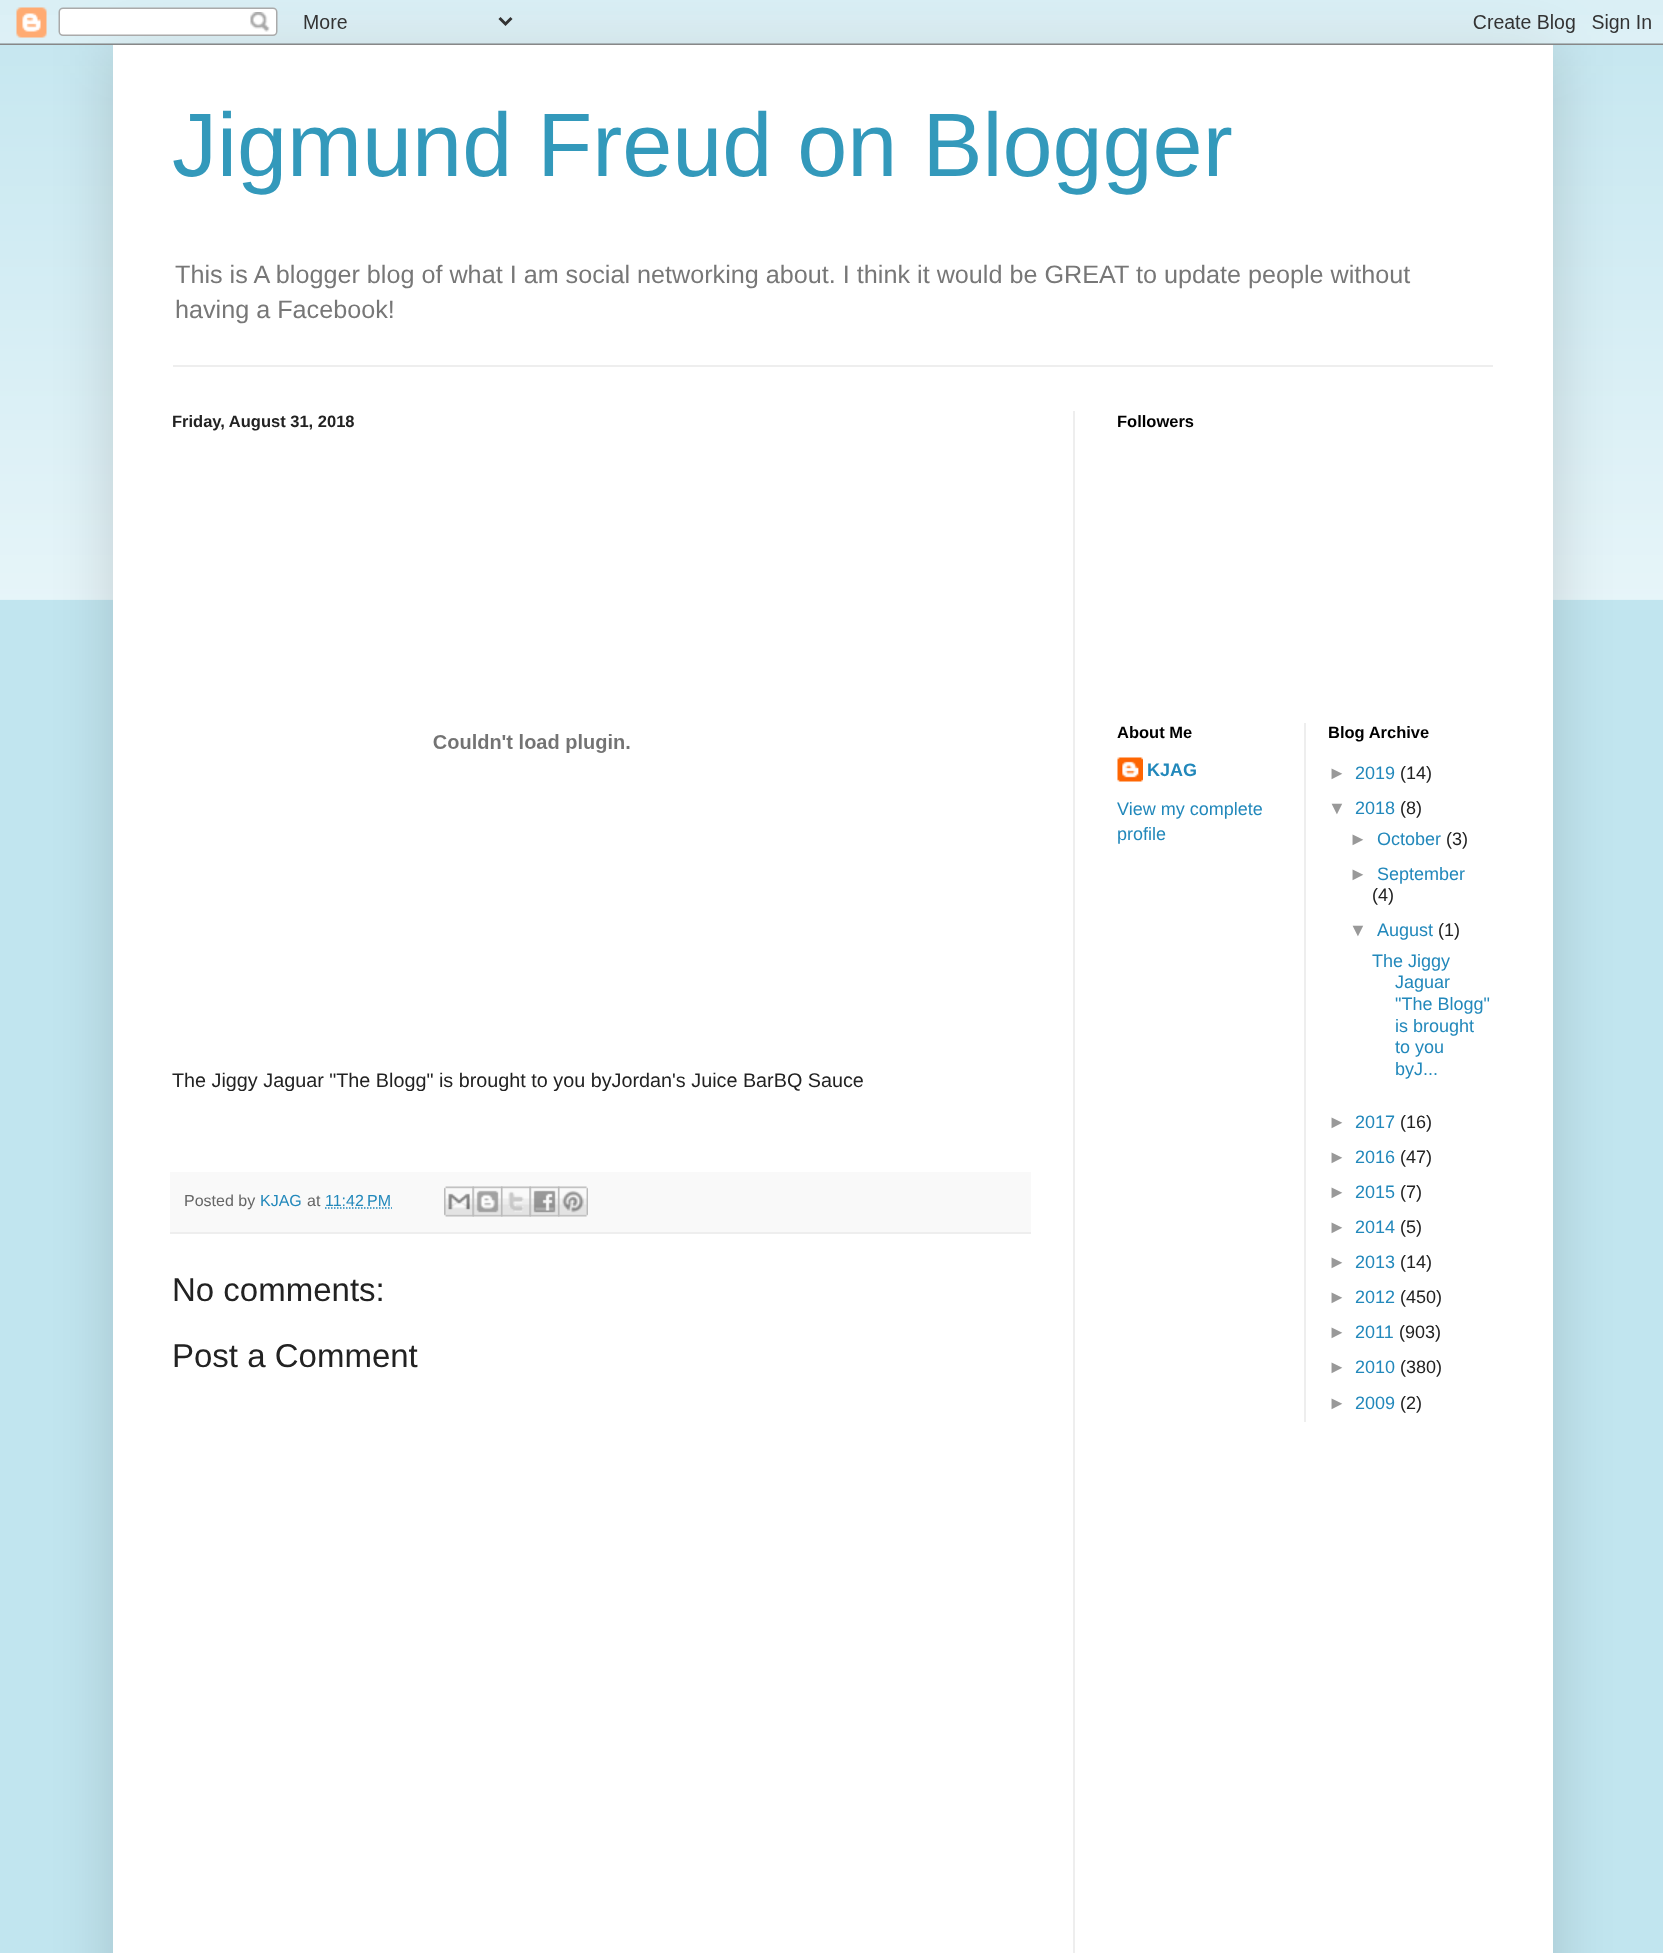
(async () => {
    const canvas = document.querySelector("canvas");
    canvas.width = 1663;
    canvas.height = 1953;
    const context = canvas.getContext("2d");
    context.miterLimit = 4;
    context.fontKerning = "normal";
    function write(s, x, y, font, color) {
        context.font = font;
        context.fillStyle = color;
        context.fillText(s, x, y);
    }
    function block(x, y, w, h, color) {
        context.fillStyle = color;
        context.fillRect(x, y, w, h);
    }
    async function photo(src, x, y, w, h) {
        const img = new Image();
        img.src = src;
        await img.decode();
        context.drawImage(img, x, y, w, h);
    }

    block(0, 0, 1663, 1953, "rgb(193, 229, 239)");
    await photo("media/2.png", 0, 15, 1663, 585);
    context.fillStyle = "rgba(0, 0, 0, 0.15)";
    context.filter = "blur(30px)";
    context.beginPath();
    context.rect(113, 45, 1440, 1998);
    context.fill();
    context.filter = "none";
    await photo("media/1.png", 0, 0, 1663, 45);
    block(113, 45, 1440, 1908, "rgb(255, 255, 255)");
    write("Jigmund Freud on Blogger", 172, 176, "90px Liberation Sans", "rgb(51, 153, 187)");
    write("This is A blogger blog of what I am social networking about. I think it would be GREAT to update people without", 175, 283, "25.2px Liberation Sans", "rgb(119, 119, 119)");
    write("having a Facebook!", 175, 318, "25.2px Liberation Sans", "rgb(119, 119, 119)");
    block(173, 365, 1320, 2, "rgb(238, 238, 238)");
    block(1073, 411, 2, 1542, "rgb(238, 238, 238)");
    write("Friday, August 31, 2018", 172, 427, "bold 16.5px Liberation Sans", "rgb(34, 34, 34)");
    await photo("media/3.png", 433, 734, 197, 19);
    write("The Jiggy Jaguar \"The Blogg\" is brought to you byJordan's Juice BarBQ Sauce", 172, 1087, "19.8px Liberation Sans", "rgb(34, 34, 34)");
    block(170, 1172, 861, 60, "rgb(249, 249, 249)");
    block(170, 1232, 861, 2, "rgb(238, 238, 238)");
    write("Posted by", 184, 1206, "16px Liberation Sans", "rgb(102, 102, 102)");
    write("KJAG", 260, 1206, "16px Liberation Sans", "rgb(34, 136, 187)");
    write("at", 307, 1206, "16px Liberation Sans", "rgb(102, 102, 102)");
    write("11:42 PM", 325, 1206, "16px Liberation Sans", "rgb(34, 136, 187)");
    context.beginPath();
    context.moveTo(325, 1208);
    context.lineTo(392, 1208);
    context.strokeStyle = "rgb(34, 136, 187)";
    context.lineWidth = 1.5;
    context.setLineDash([1.5, 1.5]);
    context.stroke();
    await photo("media/4.png", 444, 1186, 30, 31);
    await photo("media/5.png", 472, 1186, 31, 31);
    await photo("media/6.png", 501, 1186, 30, 31);
    await photo("media/7.png", 529, 1186, 31, 31);
    await photo("media/8.png", 558, 1186, 30, 31);
    write("No comments:", 172, 1301, "33px Liberation Sans", "rgb(34, 34, 34)");
    write("Post a Comment", 172, 1367, "33px Liberation Sans", "rgb(34, 34, 34)");
    write("Followers", 1117, 427, "bold 16.5px Liberation Sans", "rgb(0, 0, 0)");
    write("About Me", 1117, 738, "bold 16.5px Liberation Sans", "rgb(0, 0, 0)");
    await photo("media/9.png", 1117, 757, 26, 25);
    write("KJAG", 1147, 776, "bold 18px Liberation Sans", "rgb(34, 136, 187)");
    write("View my complete", 1117, 815, "18px Liberation Sans", "rgb(34, 136, 187)");
    write("profile", 1117, 840, "18px Liberation Sans", "rgb(34, 136, 187)");
    block(1304, 723, 2, 699, "rgb(238, 238, 238)");
    write("Blog Archive", 1328, 738, "bold 16.5px Liberation Sans", "rgb(0, 0, 0)");
    write("►", 1328, 779, "18px Liberation Sans", "rgb(153, 153, 153)");
    write("2019", 1355, 779, "18px Liberation Sans", "rgb(34, 136, 187)");
    write("(14)", 1400, 779, "18px Liberation Sans", "rgb(34, 34, 34)");
    write("▼", 1328, 814, "18px Liberation Sans", "rgb(153, 153, 153)");
    write("2018", 1355, 814, "18px Liberation Sans", "rgb(34, 136, 187)");
    write("(8)", 1400, 814, "18px Liberation Sans", "rgb(34, 34, 34)");
    write("►", 1349, 845, "18px Liberation Sans", "rgb(153, 153, 153)");
    write("October", 1377, 845, "18px Liberation Sans", "rgb(34, 136, 187)");
    write("(3)", 1446, 845, "18px Liberation Sans", "rgb(34, 34, 34)");
    write("►", 1349, 880, "18px Liberation Sans", "rgb(153, 153, 153)");
    write("September", 1377, 880, "18px Liberation Sans", "rgb(34, 136, 187)");
    write("(4)", 1372, 901, "18px Liberation Sans", "rgb(34, 34, 34)");
    write("▼", 1349, 936, "18px Liberation Sans", "rgb(153, 153, 153)");
    write("August", 1377, 936, "18px Liberation Sans", "rgb(34, 136, 187)");
    write("(1)", 1438, 936, "18px Liberation Sans", "rgb(34, 34, 34)");
    write("The Jiggy", 1372, 967, "18px Liberation Sans", "rgb(34, 136, 187)");
    write("Jaguar", 1395, 988, "18px Liberation Sans", "rgb(34, 136, 187)");
    write("\"The Blogg\"", 1395, 1010, "18px Liberation Sans", "rgb(34, 136, 187)");
    write("is brought", 1395, 1032, "18px Liberation Sans", "rgb(34, 136, 187)");
    write("to you", 1395, 1053, "18px Liberation Sans", "rgb(34, 136, 187)");
    write("byJ...", 1395, 1075, "18px Liberation Sans", "rgb(34, 136, 187)");
    write("►", 1328, 1128, "18px Liberation Sans", "rgb(153, 153, 153)");
    write("2017", 1355, 1128, "18px Liberation Sans", "rgb(34, 136, 187)");
    write("(16)", 1400, 1128, "18px Liberation Sans", "rgb(34, 34, 34)");
    write("►", 1328, 1163, "18px Liberation Sans", "rgb(153, 153, 153)");
    write("2016", 1355, 1163, "18px Liberation Sans", "rgb(34, 136, 187)");
    write("(47)", 1400, 1163, "18px Liberation Sans", "rgb(34, 34, 34)");
    write("►", 1328, 1198, "18px Liberation Sans", "rgb(153, 153, 153)");
    write("2015", 1355, 1198, "18px Liberation Sans", "rgb(34, 136, 187)");
    write("(7)", 1400, 1198, "18px Liberation Sans", "rgb(34, 34, 34)");
    write("►", 1328, 1233, "18px Liberation Sans", "rgb(153, 153, 153)");
    write("2014", 1355, 1233, "18px Liberation Sans", "rgb(34, 136, 187)");
    write("(5)", 1400, 1233, "18px Liberation Sans", "rgb(34, 34, 34)");
    write("►", 1328, 1268, "18px Liberation Sans", "rgb(153, 153, 153)");
    write("2013", 1355, 1268, "18px Liberation Sans", "rgb(34, 136, 187)");
    write("(14)", 1400, 1268, "18px Liberation Sans", "rgb(34, 34, 34)");
    write("►", 1328, 1303, "18px Liberation Sans", "rgb(153, 153, 153)");
    write("2012", 1355, 1303, "18px Liberation Sans", "rgb(34, 136, 187)");
    write("(450)", 1400, 1303, "18px Liberation Sans", "rgb(34, 34, 34)");
    write("►", 1328, 1338, "18px Liberation Sans", "rgb(153, 153, 153)");
    write("2011", 1355, 1338, "18px Liberation Sans", "rgb(34, 136, 187)");
    write("(903)", 1399, 1338, "18px Liberation Sans", "rgb(34, 34, 34)");
    write("►", 1328, 1373, "18px Liberation Sans", "rgb(153, 153, 153)");
    write("2010", 1355, 1373, "18px Liberation Sans", "rgb(34, 136, 187)");
    write("(380)", 1400, 1373, "18px Liberation Sans", "rgb(34, 34, 34)");
    write("►", 1328, 1409, "18px Liberation Sans", "rgb(153, 153, 153)");
    write("2009", 1355, 1409, "18px Liberation Sans", "rgb(34, 136, 187)");
    write("(2)", 1400, 1409, "18px Liberation Sans", "rgb(34, 34, 34)");
})();
